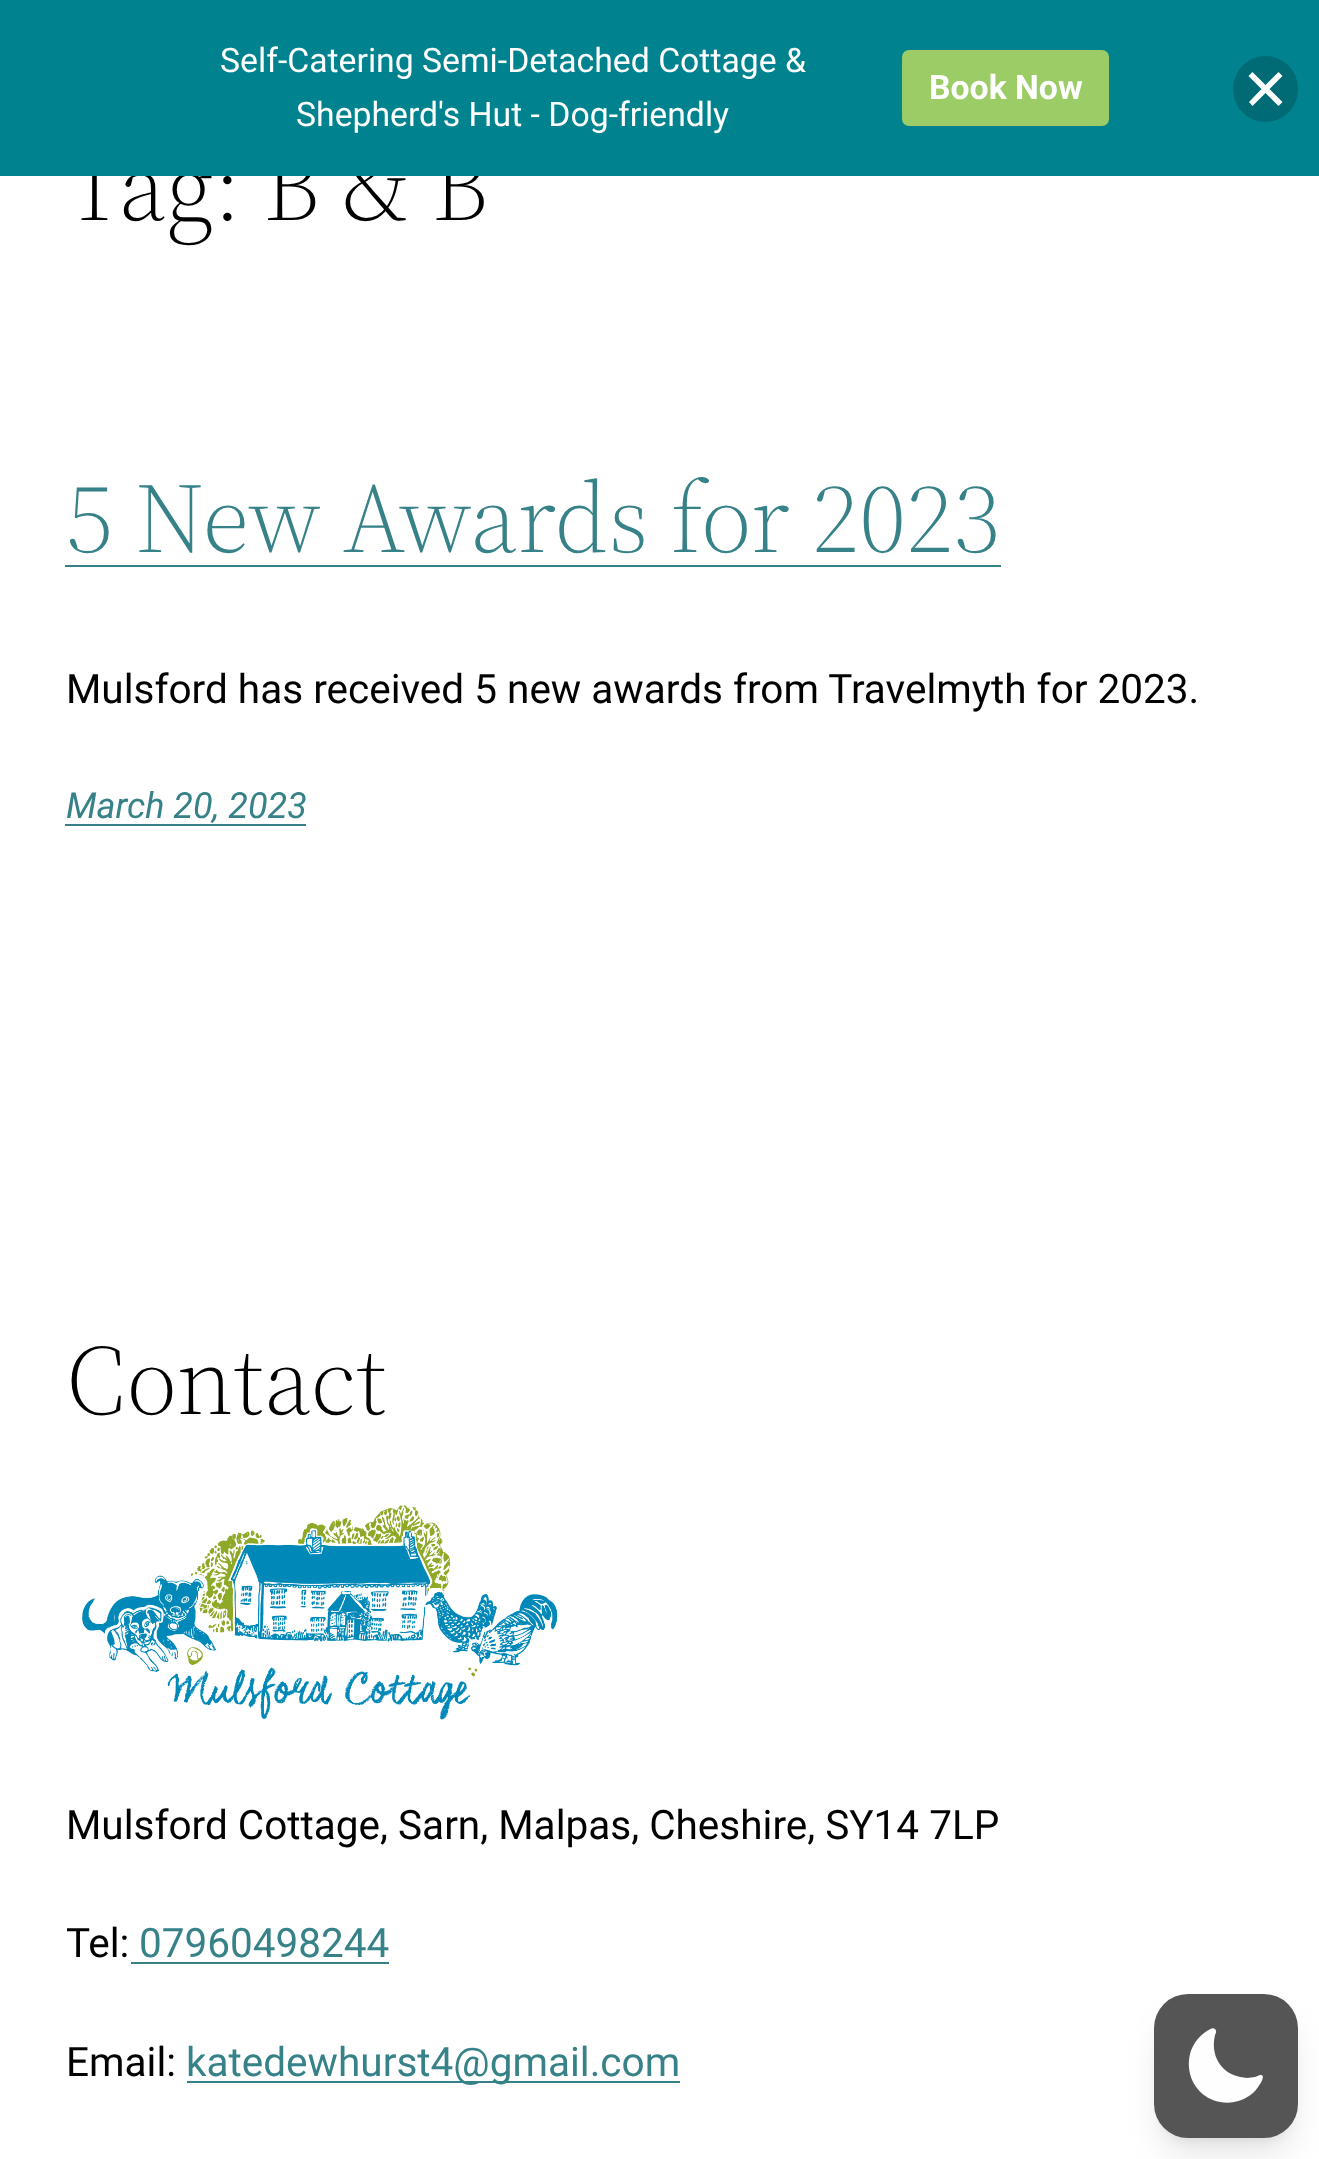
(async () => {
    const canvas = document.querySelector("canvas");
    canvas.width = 1319;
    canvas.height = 2159;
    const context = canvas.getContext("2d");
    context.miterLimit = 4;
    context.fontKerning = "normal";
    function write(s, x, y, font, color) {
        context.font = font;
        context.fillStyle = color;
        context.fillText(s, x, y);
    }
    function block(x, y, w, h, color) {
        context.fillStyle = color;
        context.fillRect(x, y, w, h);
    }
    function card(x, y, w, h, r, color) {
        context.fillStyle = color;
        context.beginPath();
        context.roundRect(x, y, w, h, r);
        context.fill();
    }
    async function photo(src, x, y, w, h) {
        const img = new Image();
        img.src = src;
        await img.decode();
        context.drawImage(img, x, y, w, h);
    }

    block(0, 0, 1319, 2159, "rgb(255, 255, 255)");
    write("Tag: B & B", 66, 220, "300 99px 'Source Serif 4'", "rgb(0, 0, 0)");
    block(0, 0, 1319, 176, "rgb(0, 131, 143)");
    write("Self-Catering Semi-Detached Cottage &", 220, 72, "33.75px Roboto", "rgb(255, 255, 255)");
    write("Shepherd's Hut - Dog-friendly", 296, 126, "33.75px Roboto", "rgb(255, 255, 255)");
    card(902, 50, 207, 76, 7, "rgb(156, 204, 101)");
    write("Book Now", 929, 99, "bold 33.75px Roboto", "rgb(255, 255, 255)");
    card(1233, 56, 65, 66, 32.5, "rgb(0, 107, 117)");
    context.fillStyle = "rgb(255, 255, 255)";
    context.beginPath();
    context.moveTo(1282.5, 76);
    context.lineTo(1278.5, 72);
    context.lineTo(1265.5, 85);
    context.lineTo(1252.5, 72);
    context.lineTo(1248.5, 76);
    context.lineTo(1261.5, 89);
    context.lineTo(1249, 102);
    context.lineTo(1252.5, 106);
    context.lineTo(1265.5, 93);
    context.lineTo(1278.5, 106);
    context.lineTo(1282.5, 102);
    context.lineTo(1269.5, 89);
    context.closePath();
    context.fill();
    write("5 New Awards for 2023", 66, 552, "300 99px 'Source Serif 4'", "rgb(54, 130, 136)");
    block(65, 565, 936, 2, "rgb(54, 130, 136)");
    write("Mulsford has received 5 new awards from Travelmyth for 2023.", 66, 703, "40.5px Roboto", "rgb(0, 0, 0)");
    write("March 20, 2023", 66, 818, "italic 36px Roboto", "rgb(54, 130, 136)");
    block(65, 824, 241, 2, "rgb(54, 130, 136)");
    write("Contact", 66, 1414, "300 99px 'Source Serif 4'", "rgb(0, 0, 0)");
    await photo("media/1.png", 82, 1505, 476, 215);
    write("Mulsford Cottage, Sarn, Malpas, Cheshire, SY14 7LP", 66, 1839, "40.5px Roboto", "rgb(0, 0, 0)");
    write("Tel:", 66, 1957, "40.5px Roboto", "rgb(0, 0, 0)");
    write("07960498244", 139, 1957, "40.5px Roboto", "rgb(54, 130, 136)");
    block(131, 1962, 258, 2, "rgb(54, 130, 136)");
    write("Email:", 66, 2076, "40.5px Roboto", "rgb(0, 0, 0)");
    block(187, 2081, 493, 2, "rgb(54, 130, 136)");
    write("katedewhurst4@gmail.com", 186, 2076, "40.5px Roboto", "rgb(54, 130, 136)");
    context.fillStyle = "rgba(0, 0, 0, 0.1)";
    context.filter = "blur(7px)";
    context.beginPath();
    context.roundRect(1163, 2012, 126, 126, 25);
    context.fill();
    context.filter = "none";
    context.filter = "blur(17px)";
    context.beginPath();
    context.roundRect(1161, 2023, 131, 130, 27);
    context.fill();
    context.filter = "none";
    card(1154, 1994, 144, 144, 34, "rgb(85, 85, 85)");
    context.fillStyle = "rgb(254, 254, 254)";
    context.beginPath();
    context.moveTo(1215, 2029);
    context.bezierCurveTo(1217, 2031, 1216, 2033, 1215, 2035);
    context.lineTo(1214, 2041);
    context.bezierCurveTo(1213, 2051, 1216, 2061, 1223, 2068);
    context.bezierCurveTo(1230, 2075, 1238, 2077, 1247, 2078);
    context.lineTo(1255, 2077);
    context.lineTo(1260, 2075);
    context.bezierCurveTo(1266, 2074, 1261, 2083, 1260, 2084);
    context.bezierCurveTo(1257, 2089, 1254, 2093, 1249, 2096);
    context.bezierCurveTo(1240, 2102, 1230, 2104, 1220, 2102);
    context.bezierCurveTo(1185, 2095, 1178, 2049, 1207, 2031);
    context.bezierCurveTo(1209, 2030, 1213, 2027, 1215, 2029);
    context.closePath();
    context.fill("evenodd");
})();
